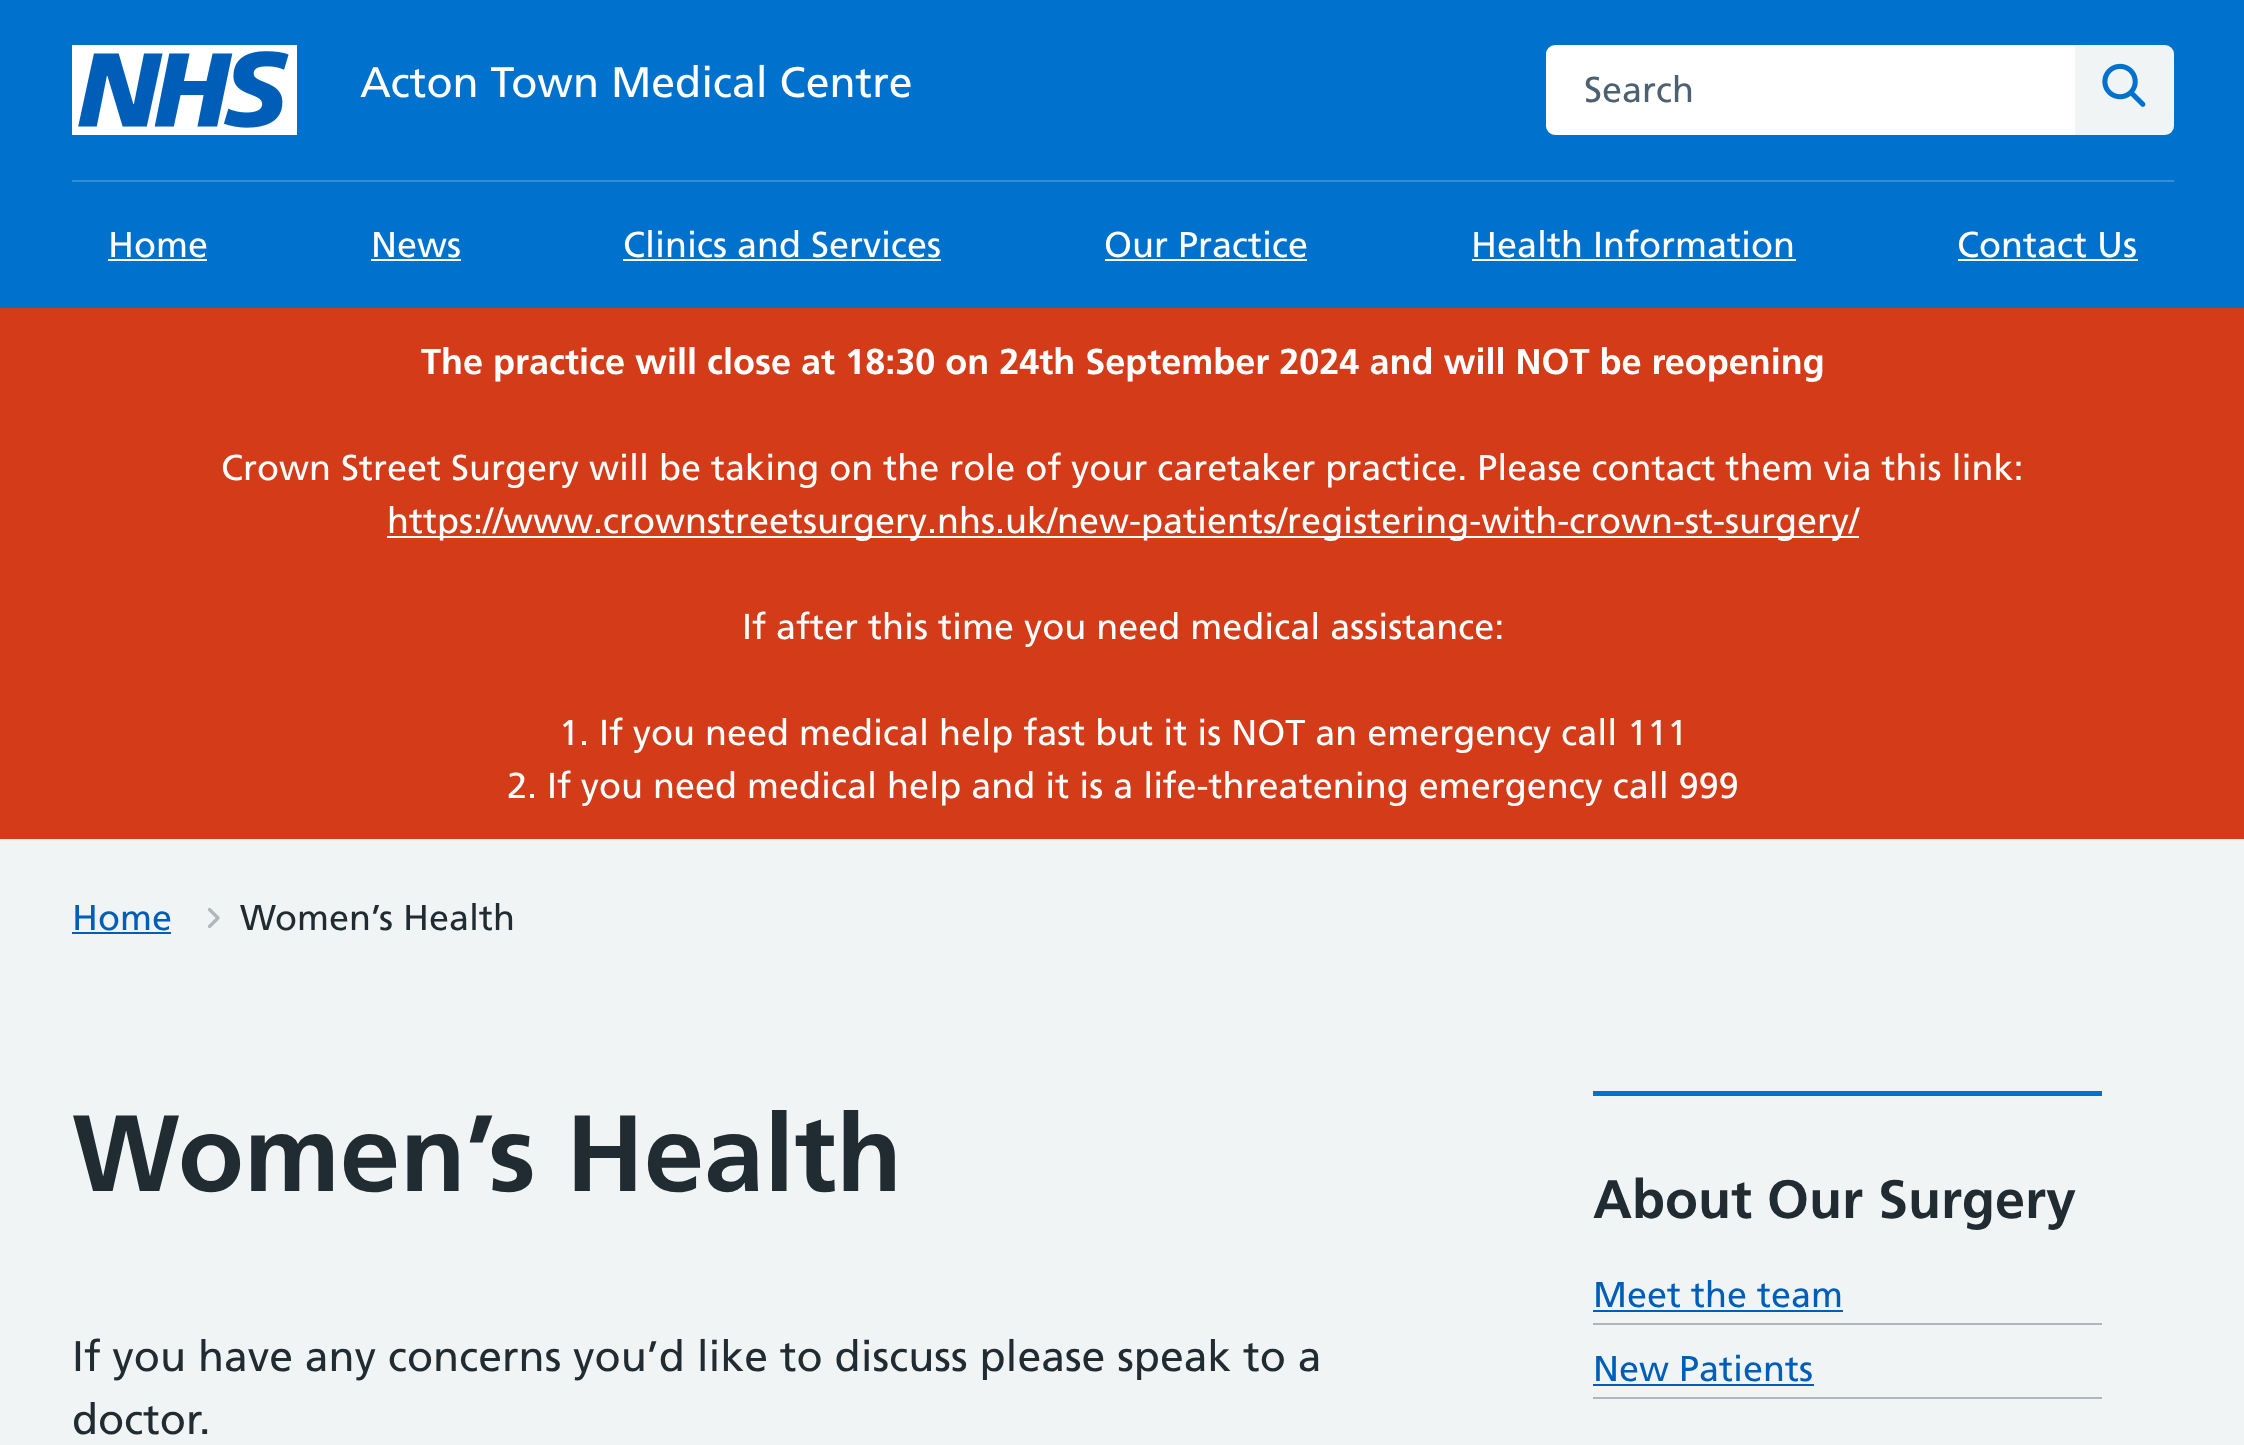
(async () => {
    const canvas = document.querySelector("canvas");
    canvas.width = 2244;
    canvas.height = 1445;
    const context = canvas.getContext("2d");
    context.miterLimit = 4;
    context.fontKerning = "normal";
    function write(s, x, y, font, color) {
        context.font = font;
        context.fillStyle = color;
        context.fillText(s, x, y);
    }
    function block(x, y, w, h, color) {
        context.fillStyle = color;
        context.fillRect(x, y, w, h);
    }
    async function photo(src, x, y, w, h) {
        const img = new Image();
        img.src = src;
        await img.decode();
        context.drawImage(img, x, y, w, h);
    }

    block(0, 0, 2244, 1445, "rgb(240, 244, 245)");
    block(0, 0, 2244, 308, "rgb(0, 114, 206)");
    block(72, 180, 2102, 2, "rgb(51, 142, 216)");
    await photo("media/1.png", 72, 45, 225, 90);
    write("Acton Town Medical Centre", 360, 97, "42.75px Frutiger", "rgb(255, 255, 255)");
    context.beginPath();
    context.roundRect(1547, 46, 527, 88, [8, 0, 0, 8]);
    context.fill();
    context.strokeStyle = "rgb(255, 255, 255)";
    context.lineWidth = 2;
    context.stroke();
    write("Search", 1584, 102, "36px Frutiger", "rgb(76, 98, 114)");
    context.fillStyle = "rgb(240, 244, 245)";
    context.beginPath();
    context.roundRect(2075, 45, 99, 90, [0, 9, 9, 0]);
    context.fill();
    await photo("media/2.png", 2102, 63, 44, 44);
    write("Home", 108, 257, "36px Frutiger", "rgb(255, 255, 255)");
    block(108, 259, 99, 2, "rgb(255, 255, 255)");
    write("News", 371, 257, "36px Frutiger", "rgb(255, 255, 255)");
    block(371, 259, 90, 2, "rgb(255, 255, 255)");
    write("Clinics and Services", 623, 257, "36px Frutiger", "rgb(255, 255, 255)");
    block(623, 259, 318, 2, "rgb(255, 255, 255)");
    write("Our Practice", 1104, 257, "36px Frutiger", "rgb(255, 255, 255)");
    block(1105, 259, 202, 2, "rgb(255, 255, 255)");
    write("Health Information", 1471, 257, "36px Frutiger", "rgb(255, 255, 255)");
    block(1472, 259, 324, 2, "rgb(255, 255, 255)");
    write("Contact Us", 1957, 257, "36px Frutiger", "rgb(255, 255, 255)");
    block(1958, 259, 180, 2, "rgb(255, 255, 255)");
    block(0, 308, 2244, 531, "rgb(211, 59, 25)");
    write("The practice will close at 18:30 on 24th September 2024 and will NOT be reopening", 421, 374, "bold 36px Frutiger", "rgb(255, 255, 255)");
    write("Crown Street Surgery will be taking on the role of your caretaker practice. Please contact them via this link:", 221, 480, "36px Frutiger", "rgb(255, 255, 255)");
    block(387, 536, 1472, 2, "rgb(255, 255, 255)");
    write("https://www.crownstreetsurgery.nhs.uk/new-patients/registering-with-crown-st-surgery/", 387, 533, "36px Frutiger", "rgb(255, 255, 255)");
    write("If after this time you need medical assistance:", 742, 639, "36px Frutiger", "rgb(255, 255, 255)");
    write("1. If you need medical help fast but it is NOT an emergency call 111", 559, 745, "36px Frutiger", "rgb(255, 255, 255)");
    write("2. If you need medical help and it is a life-threatening emergency call 999", 507, 798, "36px Frutiger", "rgb(255, 255, 255)");
    write("Home", 72, 930, "36px Frutiger", "rgb(0, 94, 184)");
    block(72, 932, 99, 2, "rgb(0, 94, 184)");
    await photo("media/3.png", 207, 907, 13, 22);
    write("Women’s Health", 240, 930, "36px Frutiger", "rgb(33, 43, 50)");
    write("Women’s Health", 72, 1191, "bold 108px Frutiger", "rgb(33, 43, 50)");
    write("If you have any concerns you’d like to discuss please speak to a", 72, 1371, "42.75px Frutiger", "rgb(33, 43, 50)");
    write("doctor.", 72, 1434, "42.75px Frutiger", "rgb(33, 43, 50)");
    block(1593, 1091, 509, 5, "rgb(0, 114, 206)");
    write("About Our Surgery", 1593, 1218, "bold 54px Frutiger", "rgb(33, 43, 50)");
    block(1593, 1323, 509, 2, "rgb(174, 183, 189)");
    write("Meet the team", 1593, 1307, "36px Frutiger", "rgb(0, 94, 184)");
    block(1593, 1310, 250, 2, "rgb(0, 94, 184)");
    block(1593, 1397, 509, 2, "rgb(174, 183, 189)");
    write("New Patients", 1593, 1381, "36px Frutiger", "rgb(0, 94, 184)");
    block(1593, 1384, 221, 2, "rgb(0, 94, 184)");
})();
